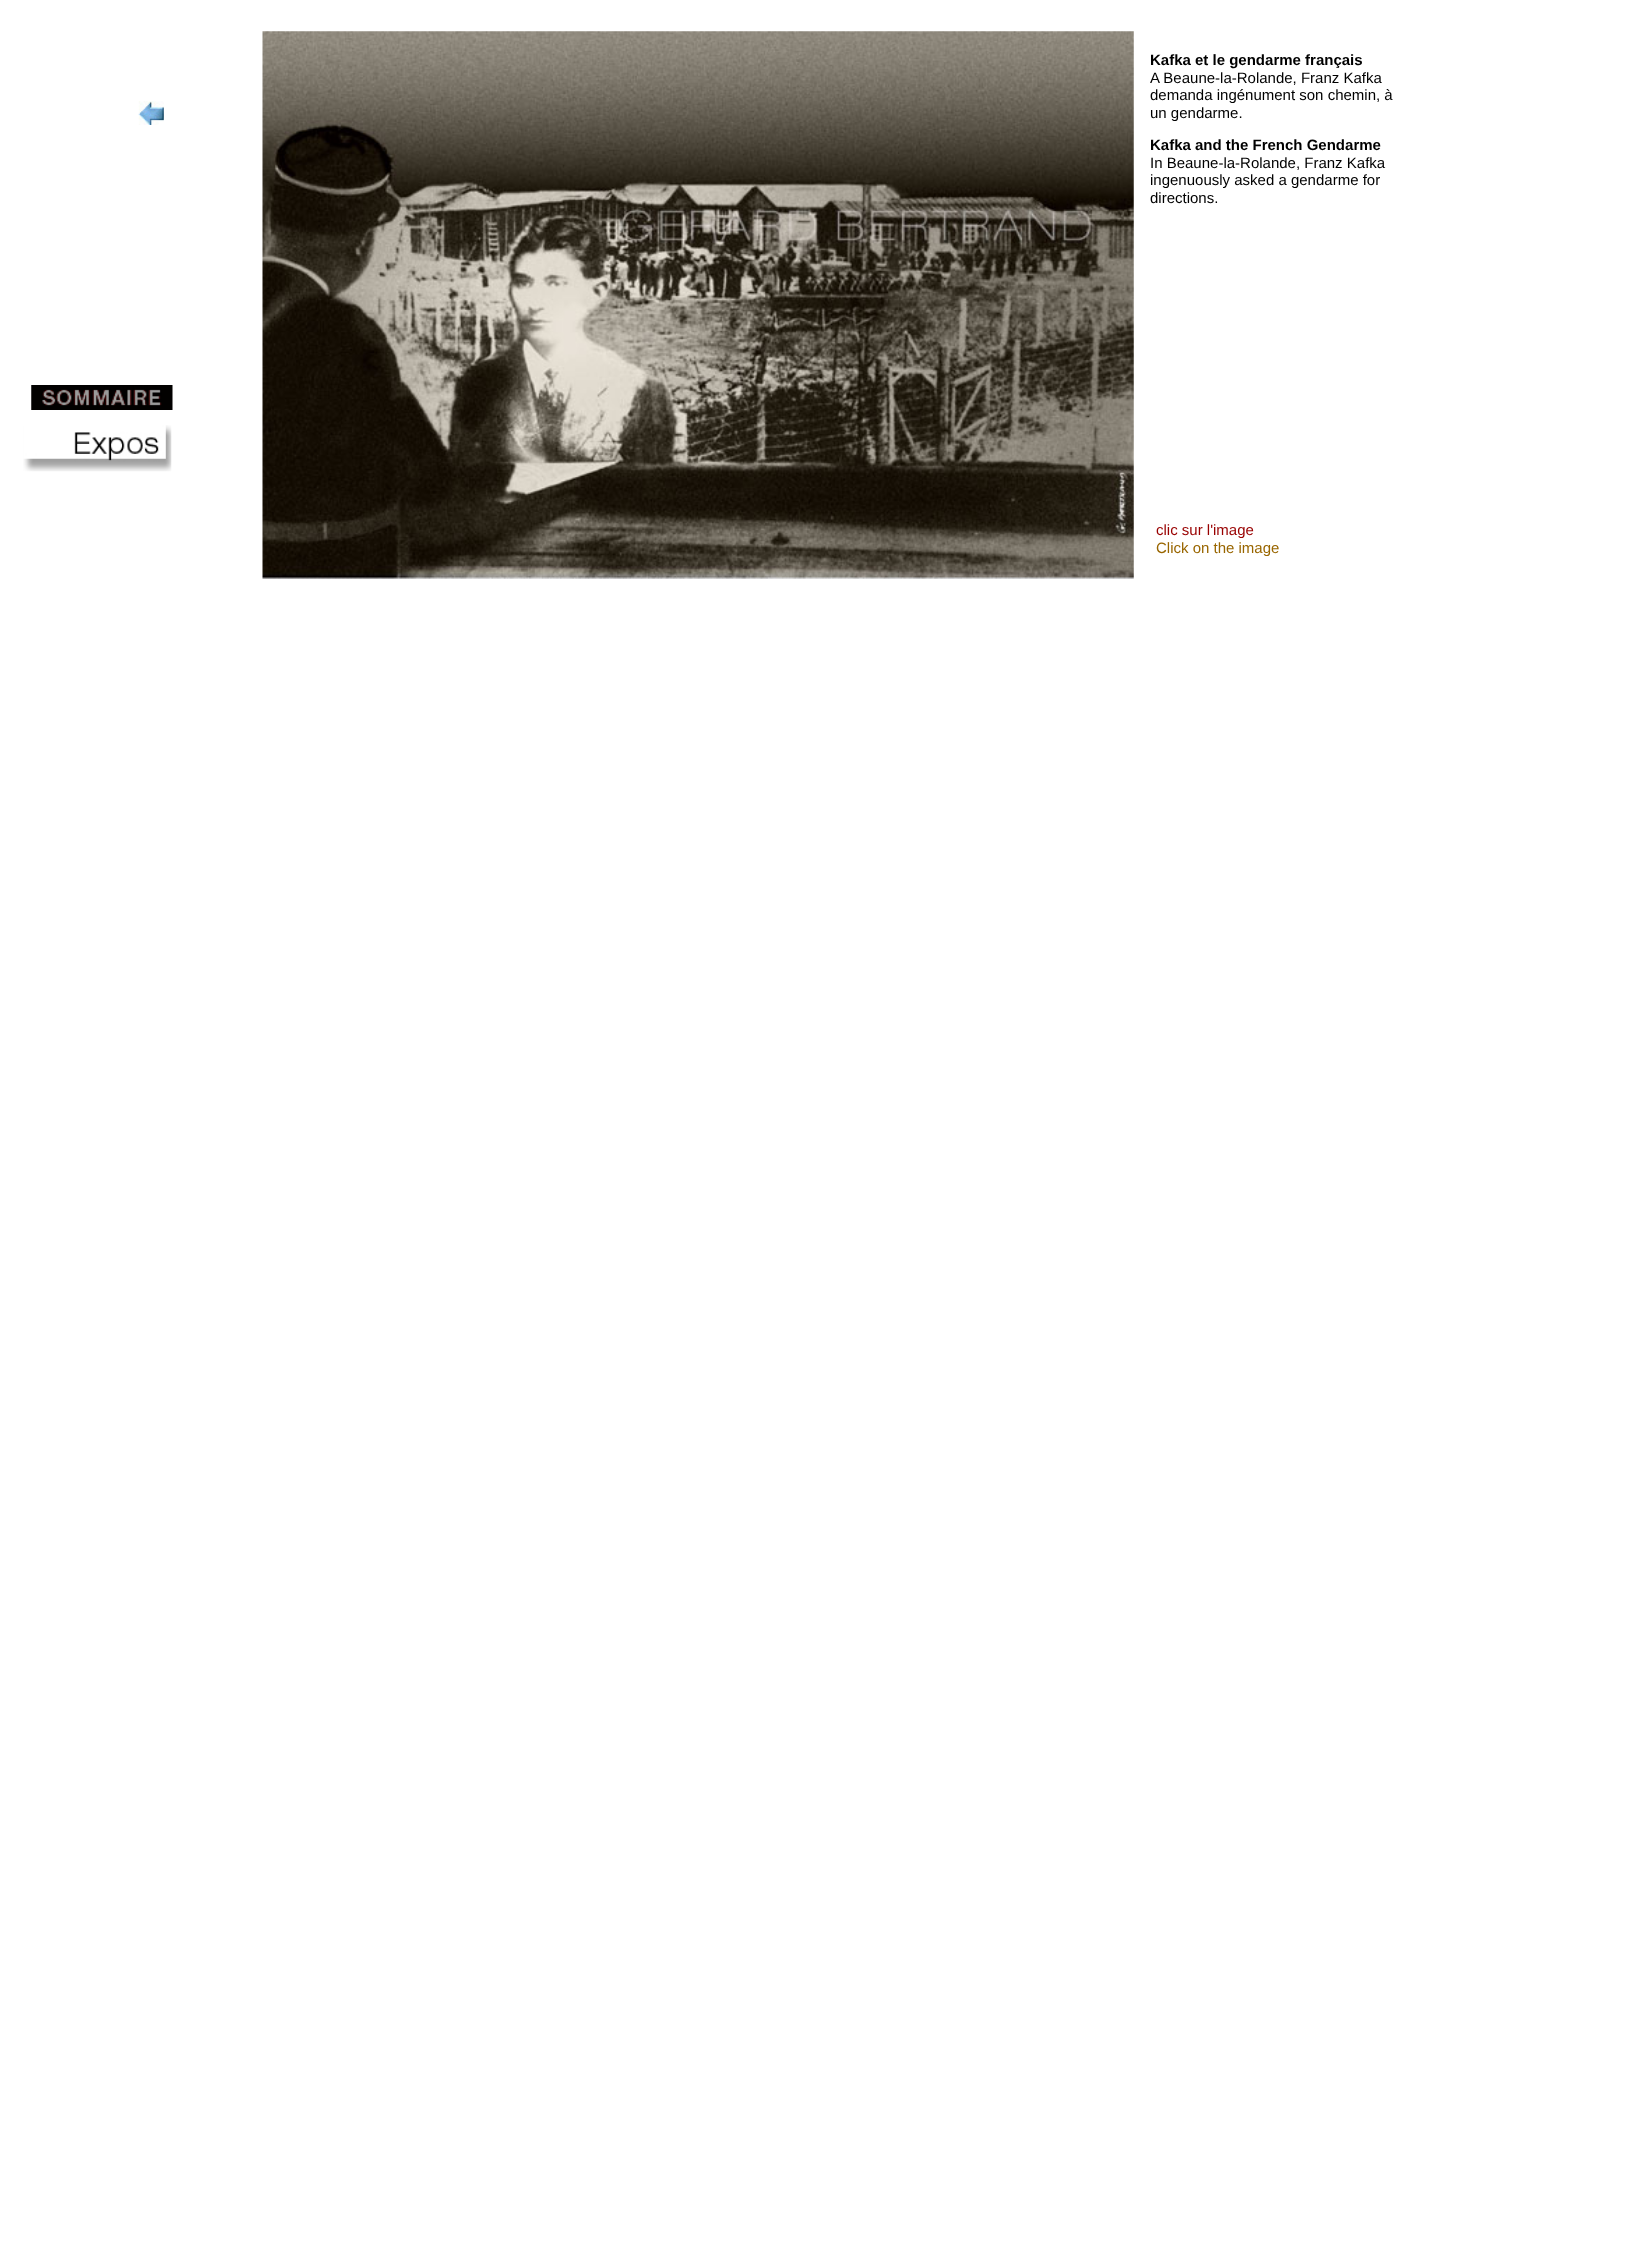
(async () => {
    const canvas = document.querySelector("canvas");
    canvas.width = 1634;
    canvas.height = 2267;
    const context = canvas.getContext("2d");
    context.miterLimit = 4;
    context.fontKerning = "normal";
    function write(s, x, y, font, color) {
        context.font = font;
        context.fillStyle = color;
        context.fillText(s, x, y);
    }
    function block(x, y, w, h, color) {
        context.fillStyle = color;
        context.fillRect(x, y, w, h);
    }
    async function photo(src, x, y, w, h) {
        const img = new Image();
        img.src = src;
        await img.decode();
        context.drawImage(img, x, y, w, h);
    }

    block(0, 0, 1634, 2267, "rgb(255, 255, 255)");
    await photo("media/1.png", 138, 101, 26, 24);
    await photo("media/2.png", 262, 31, 872, 548);
    write("Kafka et le gendarme français", 1150, 65, "bold 15px Liberation Sans", "rgb(0, 0, 0)");
    write("A Beaune-la-Rolande, Franz Kafka", 1150, 83, "15px Liberation Sans", "rgb(0, 0, 0)");
    write("demanda ingénument son chemin, à", 1150, 100, "15px Liberation Sans", "rgb(0, 0, 0)");
    write("un gendarme.", 1150, 118, "15px Liberation Sans", "rgb(0, 0, 0)");
    write("Kafka and the French Gendarme", 1150, 150, "bold 15px Liberation Sans", "rgb(0, 0, 0)");
    write("In Beaune-la-Rolande, Franz Kafka", 1150, 168, "15px Liberation Sans", "rgb(0, 0, 0)");
    write("ingenuously asked a gendarme for", 1150, 185, "15px Liberation Sans", "rgb(0, 0, 0)");
    write("directions.", 1150, 203, "15px Liberation Sans", "rgb(0, 0, 0)");
    await photo("media/3.png", 31, 385, 142, 25);
    await photo("media/4.png", 23, 425, 149, 47);
    write("clic sur l'image", 1156, 535, "15px Liberation Sans", "rgb(153, 0, 0)");
    write("Click on the image", 1156, 553, "15px Liberation Sans", "rgb(153, 102, 0)");
})();
